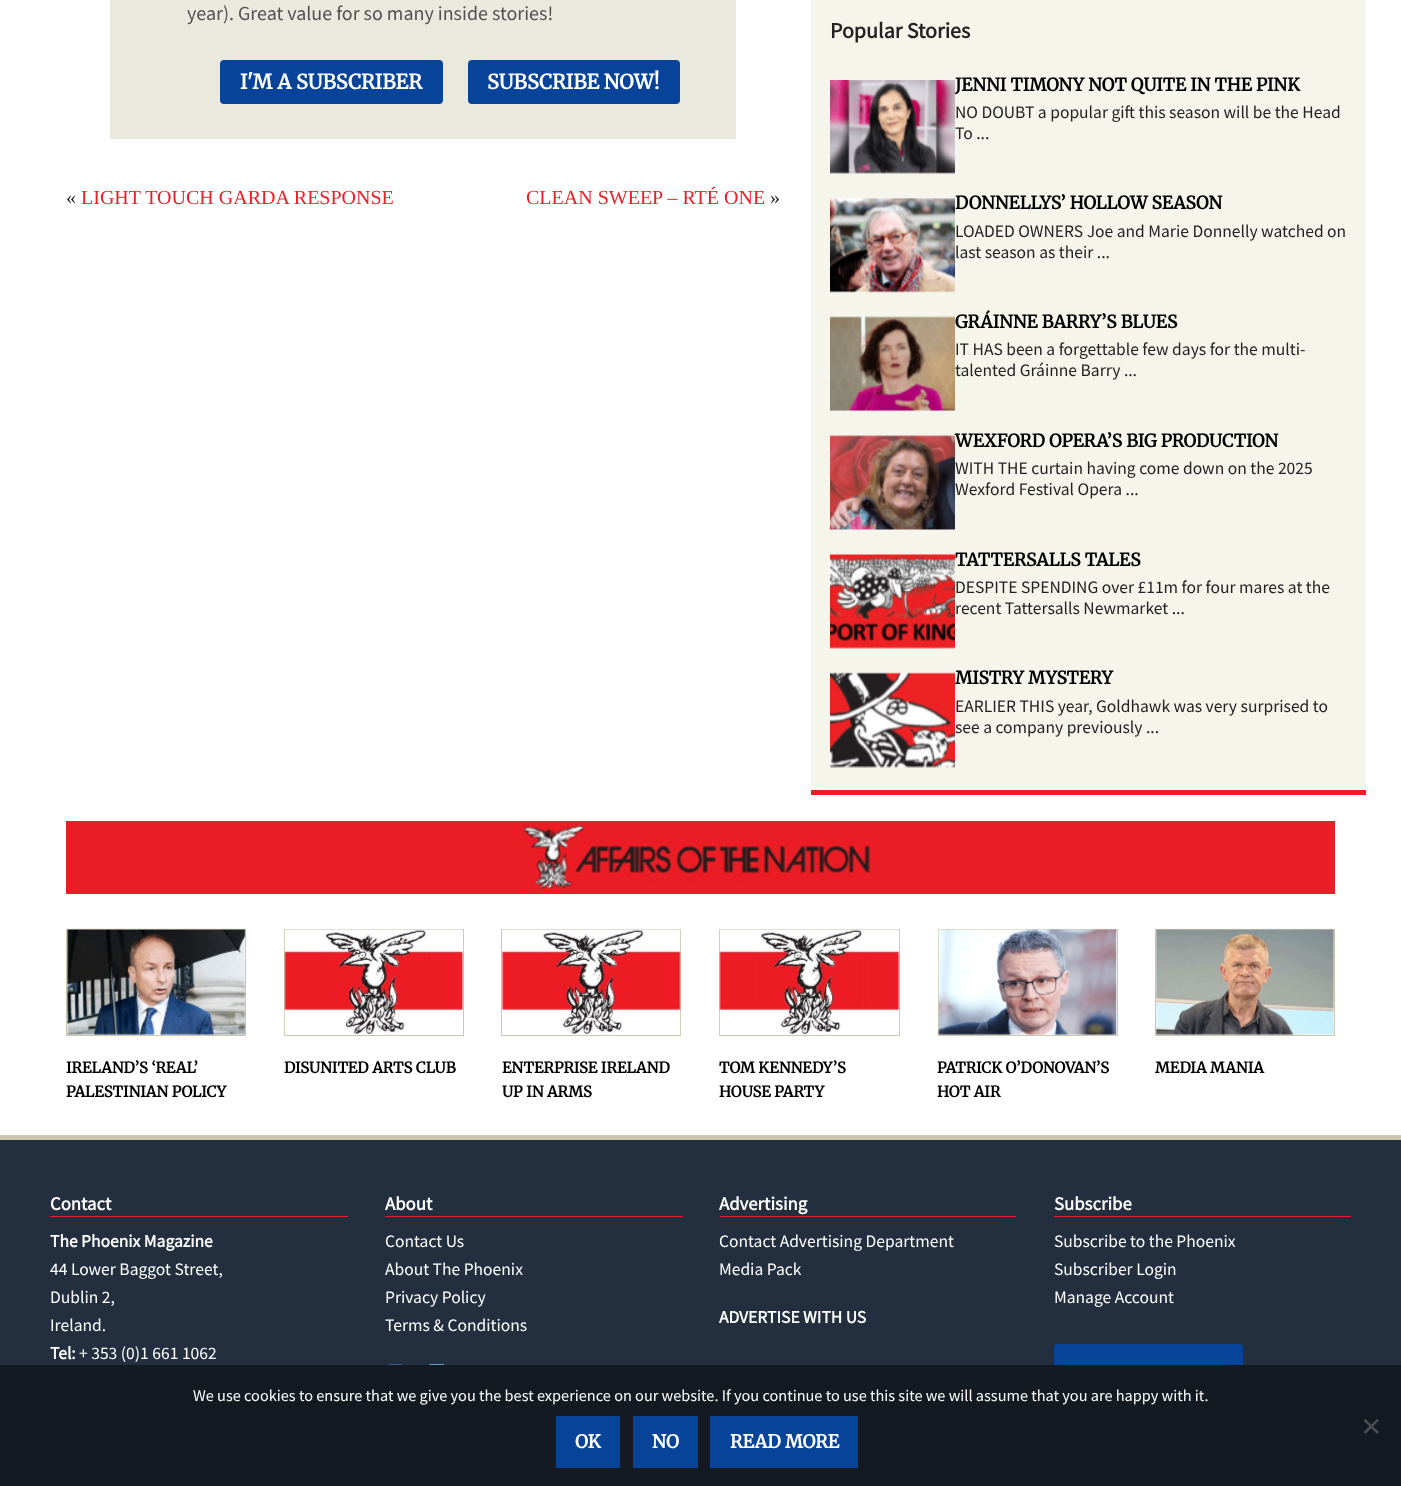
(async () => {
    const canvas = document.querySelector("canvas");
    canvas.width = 1401;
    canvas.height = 1486;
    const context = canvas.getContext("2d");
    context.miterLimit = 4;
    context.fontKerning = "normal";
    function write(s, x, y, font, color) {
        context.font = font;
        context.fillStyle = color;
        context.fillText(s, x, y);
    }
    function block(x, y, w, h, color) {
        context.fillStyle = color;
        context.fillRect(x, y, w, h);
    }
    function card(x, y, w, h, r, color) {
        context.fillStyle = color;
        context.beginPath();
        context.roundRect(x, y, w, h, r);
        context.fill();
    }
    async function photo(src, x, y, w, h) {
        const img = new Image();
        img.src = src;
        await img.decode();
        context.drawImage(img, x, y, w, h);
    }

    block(0, 0, 1401, 1486, "rgb(35, 47, 62)");
    block(0, 0, 1401, 1135, "rgb(255, 255, 255)");
    block(110, 0, 626, 139, "rgb(234, 233, 222)");
    write("year). Great value for so many inside stories!", 187, 20, "20px Source Sans Pro", "rgb(81, 81, 81)");
    card(220, 60, 223, 44, 4, "rgb(7, 67, 153)");
    write("I'M A SUBSCRIBER", 240, 89, "bold 20px Merriweather", "rgb(255, 255, 255)");
    card(468, 60, 212, 44, 4, "rgb(7, 67, 153)");
    write("SUBSCRIBE NOW!", 487, 89, "bold 20px Merriweather", "rgb(255, 255, 255)");
    write("«", 66, 204, "20px Liberation Serif", "rgb(34, 34, 34)");
    write("LIGHT TOUCH GARDA RESPONSE", 81, 204, "20px Liberation Serif", "rgb(236, 29, 37)");
    write("CLEAN SWEEP – RTÉ ONE", 526, 204, "20px Liberation Serif", "rgb(236, 29, 37)");
    write("»", 770, 204, "20px Liberation Serif", "rgb(34, 34, 34)");
    block(811, 0, 555, 790, "rgb(246, 245, 235)");
    block(811, 790, 555, 5, "rgb(236, 29, 37)");
    write("Popular Stories", 830, 38, "bold 22px Source Sans Pro", "rgb(34, 34, 34)");
    await photo("media/1.png", 830, 80, 125, 94);
    write("JENNI TIMONY NOT QUITE IN THE PINK", 955, 91, "bold 17.5px Merriweather", "rgb(0, 0, 0)");
    write("NO DOUBT a popular gift this season will be the Head", 955, 118, "17.5px Source Sans Pro", "rgb(34, 34, 34)");
    write("To ...", 955, 139, "17.5px Source Sans Pro", "rgb(34, 34, 34)");
    await photo("media/2.png", 830, 198, 125, 95);
    write("DONNELLYS’ HOLLOW SEASON", 955, 209, "bold 17.5px Merriweather", "rgb(0, 0, 0)");
    write("LOADED OWNERS Joe and Marie Donnelly watched on", 955, 237, "17.5px Source Sans Pro", "rgb(34, 34, 34)");
    write("last season as their ...", 955, 258, "17.5px Source Sans Pro", "rgb(34, 34, 34)");
    await photo("media/3.png", 830, 316, 125, 96);
    write("GRÁINNE BARRY’S BLUES", 955, 328, "bold 17.5px Merriweather", "rgb(0, 0, 0)");
    write("IT HAS been a forgettable few days for the multi-", 955, 355, "17.5px Source Sans Pro", "rgb(34, 34, 34)");
    write("talented Gráinne Barry ...", 955, 376, "17.5px Source Sans Pro", "rgb(34, 34, 34)");
    await photo("media/4.png", 830, 435, 125, 95);
    write("WEXFORD OPERA’S BIG PRODUCTION", 955, 447, "bold 17.5px Merriweather", "rgb(0, 0, 0)");
    write("WITH THE curtain having come down on the 2025", 955, 474, "17.5px Source Sans Pro", "rgb(34, 34, 34)");
    write("Wexford Festival Opera ...", 955, 495, "17.5px Source Sans Pro", "rgb(34, 34, 34)");
    await photo("media/5.png", 830, 554, 125, 95);
    write("TATTERSALLS TALES", 955, 566, "bold 17.5px Merriweather", "rgb(0, 0, 0)");
    write("DESPITE SPENDING over £11m for four mares at the", 955, 593, "17.5px Source Sans Pro", "rgb(34, 34, 34)");
    write("recent Tattersalls Newmarket ...", 955, 614, "17.5px Source Sans Pro", "rgb(34, 34, 34)");
    await photo("media/6.png", 830, 672, 125, 96);
    write("MISTRY MYSTERY", 955, 684, "bold 17.5px Merriweather", "rgb(0, 0, 0)");
    write("EARLIER THIS year, Goldhawk was very surprised to", 955, 712, "17.5px Source Sans Pro", "rgb(34, 34, 34)");
    write("see a company previously ...", 955, 733, "17.5px Source Sans Pro", "rgb(34, 34, 34)");
    block(66, 821, 1269, 73, "rgb(235, 29, 39)");
    await photo("media/7.png", 522, 823, 350, 67);
    context.strokeStyle = "rgb(203, 199, 172)";
    context.strokeRect(66.5, 929.5, 179, 106);
    await photo("media/8.png", 67, 928, 179, 107);
    write("IRELAND’S ‘REAL’", 66, 1073, "bold 15px Merriweather", "rgb(0, 0, 0)");
    write("PALESTINIAN POLICY", 66, 1097, "bold 15px Merriweather", "rgb(0, 0, 0)");
    context.strokeRect(284.5, 929.5, 179, 106);
    await photo("media/9.png", 284, 929, 180, 106);
    write("DISUNITED ARTS CLUB", 284, 1073, "bold 15px Merriweather", "rgb(0, 0, 0)");
    context.strokeRect(501.5, 929.5, 179, 106);
    await photo("media/10.png", 502, 929, 179, 106);
    write("ENTERPRISE IRELAND", 502, 1073, "bold 15px Merriweather", "rgb(0, 0, 0)");
    write("UP IN ARMS", 502, 1097, "bold 15px Merriweather", "rgb(0, 0, 0)");
    context.strokeRect(719.5, 929.5, 180, 106);
    await photo("media/11.png", 719, 929, 181, 106);
    write("TOM KENNEDY’S", 719, 1073, "bold 15px Merriweather", "rgb(0, 0, 0)");
    write("HOUSE PARTY", 719, 1097, "bold 15px Merriweather", "rgb(0, 0, 0)");
    context.strokeRect(938.5, 929.5, 179, 106);
    await photo("media/12.png", 938, 928, 179, 107);
    write("PATRICK O’DONOVAN’S", 937, 1073, "bold 15px Merriweather", "rgb(0, 0, 0)");
    write("HOT AIR", 937, 1097, "bold 15px Merriweather", "rgb(0, 0, 0)");
    context.strokeRect(1155.5, 929.5, 179, 106);
    await photo("media/13.png", 1156, 928, 179, 107);
    write("MEDIA MANIA", 1155, 1073, "bold 15px Merriweather", "rgb(0, 0, 0)");
    block(0, 1135, 1401, 5, "rgb(203, 199, 172)");
    block(50, 1216, 298, 1, "rgb(235, 29, 39)");
    write("Contact", 50, 1210, "bold 18.75px Source Sans Pro", "rgb(255, 255, 255)");
    write("The Phoenix Magazine", 50, 1247, "bold 17.5px Source Sans Pro", "rgb(255, 255, 255)");
    write("44 Lower Baggot Street,", 50, 1275, "17.5px Source Sans Pro", "rgb(255, 255, 255)");
    write("Dublin 2,", 50, 1303, "17.5px Source Sans Pro", "rgb(255, 255, 255)");
    write("Ireland.", 50, 1331, "17.5px Source Sans Pro", "rgb(255, 255, 255)");
    write("Tel:", 50, 1359, "bold 17.5px Source Sans Pro", "rgb(255, 255, 255)");
    write("+ 353 (0)1 661 1062", 79, 1359, "17.5px Source Sans Pro", "rgb(255, 255, 255)");
    block(385, 1216, 298, 1, "rgb(235, 29, 39)");
    write("About", 385, 1210, "bold 18.75px Source Sans Pro", "rgb(255, 255, 255)");
    write("Contact Us", 385, 1247, "17.5px Source Sans Pro", "rgb(255, 255, 255)");
    write("About The Phoenix", 385, 1275, "17.5px Source Sans Pro", "rgb(255, 255, 255)");
    write("Privacy Policy", 385, 1303, "17.5px Source Sans Pro", "rgb(255, 255, 255)");
    write("Terms & Conditions", 385, 1331, "17.5px Source Sans Pro", "rgb(255, 255, 255)");
    context.fillStyle = "rgb(60, 90, 153)";
    context.beginPath();
    context.moveTo(388.5, 1389);
    context.lineTo(388.5, 1364);
    context.lineTo(402.5, 1364);
    context.lineTo(402.5, 1389);
    context.closePath();
    context.moveTo(390, 1387);
    context.lineTo(401, 1387);
    context.lineTo(401, 1365.5);
    context.lineTo(390, 1365.5);
    context.closePath();
    context.fill();
    context.fillStyle = "rgb(93, 158, 201)";
    context.beginPath();
    context.moveTo(429.5, 1389);
    context.lineTo(429.5, 1364);
    context.lineTo(444, 1364);
    context.lineTo(444, 1389);
    context.closePath();
    context.moveTo(431.5, 1387);
    context.lineTo(442, 1387);
    context.lineTo(442, 1365.5);
    context.lineTo(431.5, 1365.5);
    context.closePath();
    context.fill();
    block(720, 1216, 296, 1, "rgb(235, 29, 39)");
    write("Advertising", 719, 1210, "bold 18.75px Source Sans Pro", "rgb(255, 255, 255)");
    write("Contact Advertising Department", 719, 1247, "17.5px Source Sans Pro", "rgb(255, 255, 255)");
    write("Media Pack", 719, 1275, "17.5px Source Sans Pro", "rgb(255, 255, 255)");
    write("ADVERTISE WITH US", 719, 1323, "bold 17.5px Source Sans Pro", "rgb(255, 255, 255)");
    block(1054, 1216, 297, 1, "rgb(235, 29, 39)");
    write("Subscribe", 1054, 1210, "bold 18.75px Source Sans Pro", "rgb(255, 255, 255)");
    write("Subscribe to the Phoenix", 1054, 1247, "17.5px Source Sans Pro", "rgb(255, 255, 255)");
    write("Subscriber Login", 1054, 1275, "17.5px Source Sans Pro", "rgb(255, 255, 255)");
    write("Manage Account", 1054, 1303, "17.5px Source Sans Pro", "rgb(255, 255, 255)");
    card(1054, 1344, 189, 51, 4, "rgb(7, 67, 153)");
    block(0, 1365, 1401, 121, "rgb(19, 26, 34)");
    write("We use cookies to ensure that we give you the best experience on our website. If you continue to use this site we will assume that you are happy with it.", 193, 1401, "16.25px Source Sans Pro", "rgb(255, 255, 255)");
    context.fillStyle = "rgb(74, 77, 81)";
    context.beginPath();
    context.moveTo(1377, 1419);
    context.lineTo(1379, 1420.5);
    context.lineTo(1365.5, 1434);
    context.lineTo(1363.5, 1432);
    context.closePath();
    context.fill();
    context.beginPath();
    context.moveTo(1363.5, 1420.5);
    context.lineTo(1365.5, 1419);
    context.lineTo(1379, 1432);
    context.lineTo(1377, 1434);
    context.closePath();
    context.fill();
    block(556, 1416, 64, 52, "rgb(7, 67, 153)");
    write("OK", 575, 1448, "bold 18px Merriweather", "rgb(255, 255, 255)");
    block(633, 1416, 65, 52, "rgb(7, 67, 153)");
    write("NO", 652, 1448, "bold 18px Merriweather", "rgb(255, 255, 255)");
    block(710, 1416, 148, 52, "rgb(7, 67, 153)");
    write("READ MORE", 730, 1448, "bold 18px Merriweather", "rgb(255, 255, 255)");
})();
